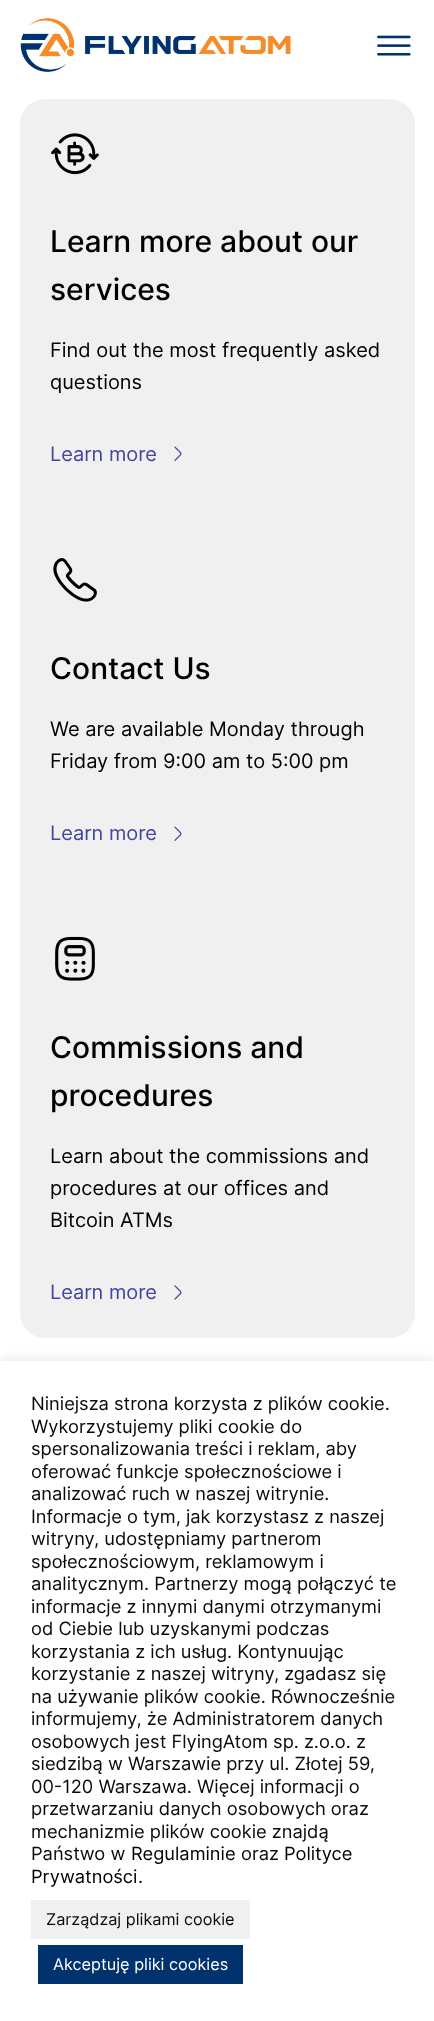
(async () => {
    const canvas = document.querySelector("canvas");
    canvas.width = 434;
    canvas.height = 2021;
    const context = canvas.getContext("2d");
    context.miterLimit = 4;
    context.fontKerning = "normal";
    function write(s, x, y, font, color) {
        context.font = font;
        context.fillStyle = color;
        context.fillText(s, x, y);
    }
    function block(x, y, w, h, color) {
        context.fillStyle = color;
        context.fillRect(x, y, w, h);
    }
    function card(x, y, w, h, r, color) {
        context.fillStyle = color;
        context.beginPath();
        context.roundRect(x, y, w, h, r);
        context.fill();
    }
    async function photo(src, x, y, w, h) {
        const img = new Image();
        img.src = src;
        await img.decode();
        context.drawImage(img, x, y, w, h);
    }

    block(0, 0, 434, 2021, "rgb(255, 255, 255)");
    await photo("media/1.png", 20, 18, 271, 54);
    await photo("media/2.png", 377, 35, 34, 21);
    card(20, 99, 395, 1239, 25, "rgb(240, 240, 240)");
    await photo("media/3.png", 51, 133, 48, 42);
    write("Learn more about our", 50, 252, "500 30px Inter", "rgb(0, 0, 0)");
    write("services", 50, 300, "500 30px Inter", "rgb(0, 0, 0)");
    write("Find out the most frequently asked", 50, 357, "20px Inter", "rgb(0, 0, 0)");
    write("questions", 50, 389, "20px Inter", "rgb(0, 0, 0)");
    write("Learn more", 50, 461, "20px Inter", "rgb(68, 69, 158)");
    await photo("media/4.png", 174, 446, 8, 15);
    await photo("media/5.png", 53, 558, 44, 44);
    write("Contact Us", 50, 679, "500 30px Inter", "rgb(0, 0, 0)");
    write("We are available Monday through", 50, 736, "20px Inter", "rgb(0, 0, 0)");
    write("Friday from 9:00 am to 5:00 pm", 50, 768, "20px Inter", "rgb(0, 0, 0)");
    write("Learn more", 50, 840, "20px Inter", "rgb(68, 69, 158)");
    await photo("media/4.png", 174, 826, 8, 15);
    await photo("media/6.png", 55, 936, 40, 45);
    write("Commissions and", 50, 1058, "500 30px Inter", "rgb(0, 0, 0)");
    write("procedures", 50, 1106, "500 30px Inter", "rgb(0, 0, 0)");
    write("Learn about the commissions and", 50, 1163, "20px Inter", "rgb(0, 0, 0)");
    write("procedures at our offices and", 50, 1195, "20px Inter", "rgb(0, 0, 0)");
    write("Bitcoin ATMs", 50, 1227, "20px Inter", "rgb(0, 0, 0)");
    write("Learn more", 50, 1299, "20px Inter", "rgb(68, 69, 158)");
    await photo("media/7.png", 174, 1285, 8, 15);
    context.fillStyle = "rgba(172, 171, 171, 0.3)";
    context.filter = "blur(6px)";
    context.beginPath();
    context.rect(0, 1360, 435, 660);
    context.fill();
    context.filter = "none";
    block(0, 1361, 434, 660, "rgb(255, 255, 255)");
    write("Niniejsza strona korzysta z plików cookie.", 31, 1410, "18.3px Inter", "rgb(10, 10, 10)");
    write("Wykorzystujemy pliki cookie do", 31, 1433, "18.3px Inter", "rgb(10, 10, 10)");
    write("spersonalizowania treści i reklam, aby", 31, 1455, "18.3px Inter", "rgb(10, 10, 10)");
    write("oferować funkcje społecznościowe i", 31, 1478, "18.3px Inter", "rgb(10, 10, 10)");
    write("analizować ruch w naszej witrynie.", 31, 1500, "18.3px Inter", "rgb(10, 10, 10)");
    write("Informacje o tym, jak korzystasz z naszej", 31, 1523, "18.3px Inter", "rgb(10, 10, 10)");
    write("witryny, udostępniamy partnerom", 31, 1545, "18.3px Inter", "rgb(10, 10, 10)");
    write("społecznościowym, reklamowym i", 31, 1568, "18.3px Inter", "rgb(10, 10, 10)");
    write("analitycznym. Partnerzy mogą połączyć te", 31, 1590, "18.3px Inter", "rgb(10, 10, 10)");
    write("informacje z innymi danymi otrzymanymi", 31, 1613, "18.3px Inter", "rgb(10, 10, 10)");
    write("od Ciebie lub uzyskanymi podczas", 31, 1635, "18.3px Inter", "rgb(10, 10, 10)");
    write("korzystania z ich usług. Kontynuując", 31, 1658, "18.3px Inter", "rgb(10, 10, 10)");
    write("korzystanie z naszej witryny, zgadasz się", 31, 1680, "18.3px Inter", "rgb(10, 10, 10)");
    write("na używanie plików cookie. Równocześnie", 31, 1703, "18.3px Inter", "rgb(10, 10, 10)");
    write("informujemy, że Administratorem danych", 31, 1725, "18.3px Inter", "rgb(10, 10, 10)");
    write("osobowych jest FlyingAtom sp. z.o.o. z", 31, 1748, "18.3px Inter", "rgb(10, 10, 10)");
    write("siedzibą w Warszawie przy ul. Złotej 59,", 31, 1770, "18.3px Inter", "rgb(10, 10, 10)");
    write("00-120 Warszawa. Więcej informacji o", 31, 1793, "18.3px Inter", "rgb(10, 10, 10)");
    write("przetwarzaniu danych osobowych oraz", 31, 1815, "18.3px Inter", "rgb(10, 10, 10)");
    write("mechanizmie plików cookie znajdą", 31, 1838, "18.3px Inter", "rgb(10, 10, 10)");
    write("Państwo w", 31, 1860, "18.3px Inter", "rgb(10, 10, 10)");
    write("Regulaminie", 131, 1860, "18.3px Inter", "rgb(0, 0, 0)");
    write("oraz", 241, 1860, "18.3px Inter", "rgb(10, 10, 10)");
    write("Polityce", 284, 1860, "18.3px Inter", "rgb(0, 0, 0)");
    write("Prywatności", 31, 1883, "18.3px Inter", "rgb(0, 0, 0)");
    write(".", 138, 1883, "18.3px Inter", "rgb(10, 10, 10)");
    block(31, 1900, 219, 39, "rgb(240, 240, 240)");
    write("Zarządzaj plikami cookie", 46, 1925, "16.25px Inter", "rgb(10, 10, 10)");
    block(38, 1945, 205, 39, "rgb(0, 50, 109)");
    write("Akceptuję pliki cookies", 53, 1970, "16.25px Inter", "rgb(255, 255, 255)");
})();
